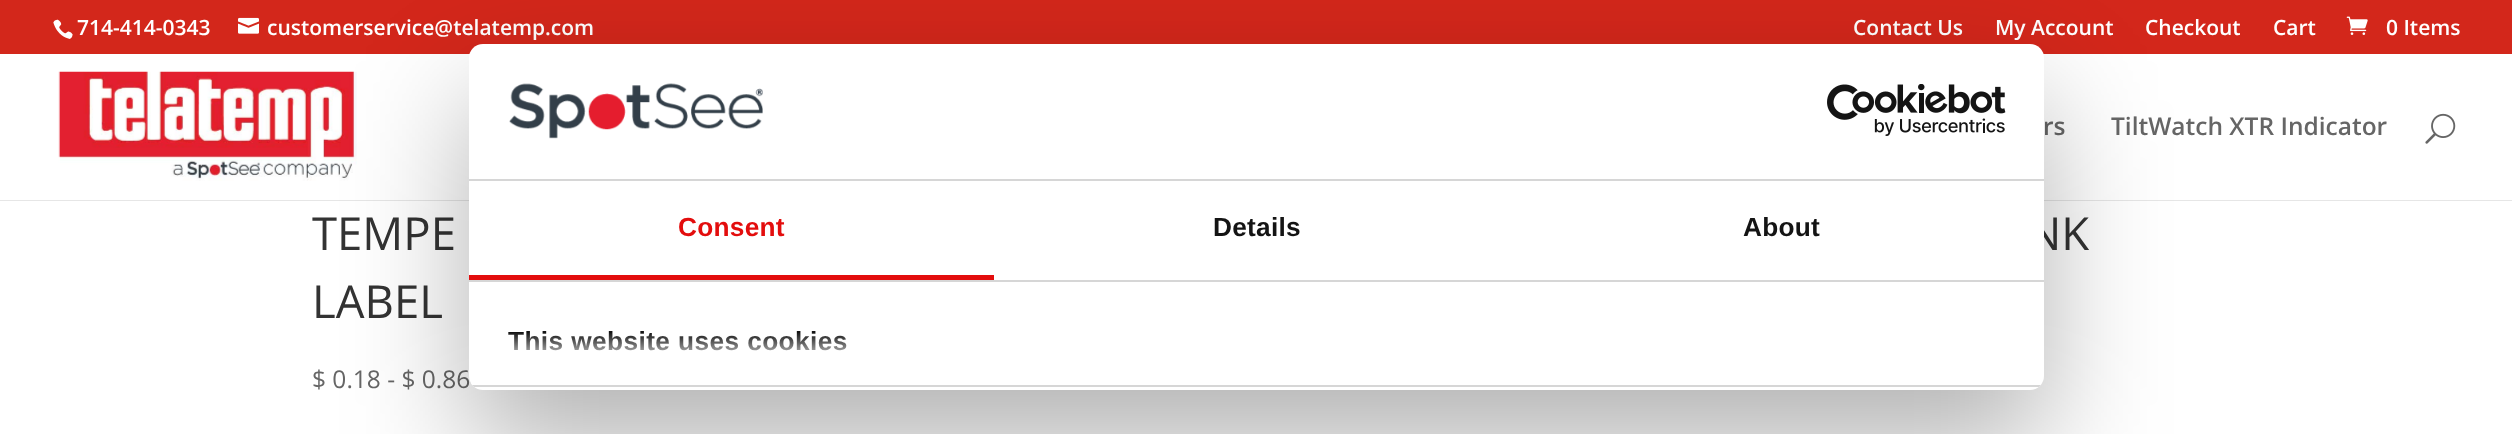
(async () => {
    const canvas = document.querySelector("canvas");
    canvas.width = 2512;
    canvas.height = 434;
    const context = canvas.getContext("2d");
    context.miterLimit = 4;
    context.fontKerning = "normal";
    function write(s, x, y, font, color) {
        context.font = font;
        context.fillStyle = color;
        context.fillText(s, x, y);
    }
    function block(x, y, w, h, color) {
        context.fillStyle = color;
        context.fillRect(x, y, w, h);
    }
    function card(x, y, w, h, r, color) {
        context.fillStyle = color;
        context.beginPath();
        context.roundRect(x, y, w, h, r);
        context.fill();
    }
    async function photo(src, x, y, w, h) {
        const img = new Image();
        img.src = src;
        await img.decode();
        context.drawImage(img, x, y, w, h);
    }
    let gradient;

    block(0, 0, 2512, 434, "rgb(255, 255, 255)");
    block(0, 0, 2512, 54, "rgb(211, 39, 27)");
    await photo("media/1.png", 53, 19, 20, 20);
    write("714-414-0343", 77, 35, "600 21px Open Sans", "rgb(255, 255, 255)");
    await photo("media/2.png", 238, 17, 21, 17);
    write("customerservice@telatemp.com", 267, 35, "600 21px Open Sans", "rgb(255, 255, 255)");
    write("Contact Us", 1853, 35, "600 21px Open Sans", "rgb(255, 255, 255)");
    write("My Account", 1995, 35, "600 21px Open Sans", "rgb(255, 255, 255)");
    write("Checkout", 2145, 35, "600 21px Open Sans", "rgb(255, 255, 255)");
    write("Cart", 2273, 35, "600 21px Open Sans", "rgb(255, 255, 255)");
    await photo("media/3.png", 2346, 16, 22, 19);
    write("0 Items", 2386, 35, "600 21px Open Sans", "rgb(255, 255, 255)");
    block(0, 200, 2512, 1, "rgb(230, 230, 230)");
    await photo("media/4.png", 58, 71, 299, 110);
    write("rs", 2043, 135, "600 24.5px Open Sans", "rgb(102, 102, 102)");
    write("TiltWatch XTR Indicator", 2111, 135, "600 24.5px Open Sans", "rgb(102, 102, 102)");
    await photo("media/5.png", 2425, 113, 31, 31);
    write("TEMPE", 312, 250, "45.5px Open Sans", "rgb(51, 51, 51)");
    write("LABEL", 312, 318, "45.5px Open Sans", "rgb(51, 51, 51)");
    write("$ 0.18 - $ 0.86", 312, 388, "24.5px Open Sans", "rgb(102, 102, 102)");
    write("NK", 2027, 250, "45.5px Open Sans", "rgb(51, 51, 51)");
    context.fillStyle = "rgba(0, 0, 0, 0.3)";
    context.filter = "blur(59.5px)";
    context.beginPath();
    context.roundRect(469, 100, 1575, 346, 14);
    context.fill();
    context.filter = "none";
    card(469, 44, 1575, 346, 14, "rgb(255, 255, 255)");
    block(469, 179, 1575, 2, "rgb(214, 214, 214)");
    await photo("media/6.png", 509, 83, 254, 56);
    await photo("media/7.png", 1827, 84, 179, 52);
    block(469, 280, 1575, 2, "rgb(214, 214, 214)");
    block(469, 275, 525, 5, "rgb(227, 13, 13)");
    context.letterSpacing = "0.25px";
    write("Consent", 678, 236, "bold 26.25px Liberation Sans", "rgb(227, 13, 13)");
    write("Details", 1213, 236, "bold 26.25px Liberation Sans", "rgb(20, 20, 20)");
    write("About", 1743, 236, "bold 26.25px Liberation Sans", "rgb(20, 20, 20)");
    context.save();
    context.beginPath();
    context.roundRect(469, 44, 1575, 346, 14);
    context.clip();
    block(469, 385, 1575, 2, "rgb(214, 214, 214)");
    context.restore();
    context.letterSpacing = "0.4px";
    write("This website uses cookies", 508, 350, "bold 26.25px Liberation Sans", "rgb(20, 20, 20)");
    context.save();
    context.beginPath();
    context.roundRect(469, 44, 1575, 346, 14);
    context.clip();
    gradient = context.createLinearGradient(1239, 385, 1239, 332);
    gradient.addColorStop(0, "rgb(255, 255, 255)");
    gradient.addColorStop(0.5, "rgba(255, 255, 255, 0.8)");
    gradient.addColorStop(1, "rgba(255, 255, 255, 0)");
    context.fillStyle = gradient;
    context.fillRect(471, 333, 1536, 52);
    context.restore();
})();
